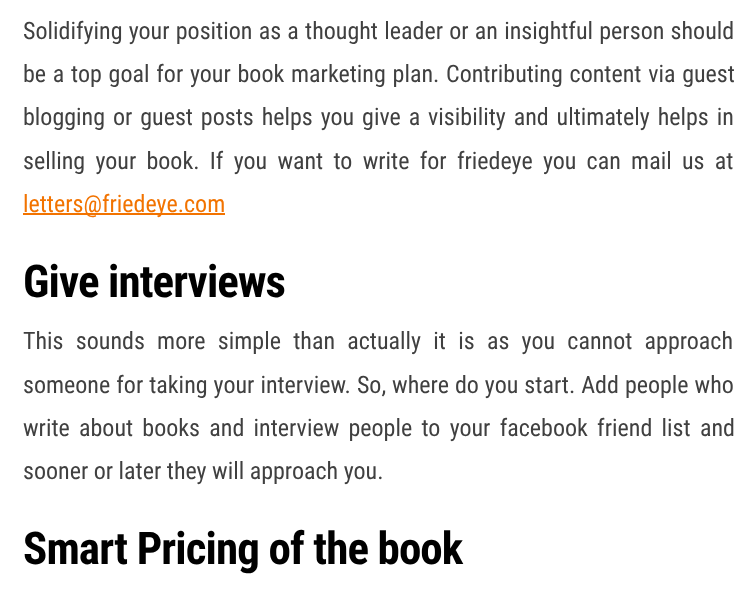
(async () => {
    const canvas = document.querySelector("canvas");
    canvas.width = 756;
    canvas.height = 594;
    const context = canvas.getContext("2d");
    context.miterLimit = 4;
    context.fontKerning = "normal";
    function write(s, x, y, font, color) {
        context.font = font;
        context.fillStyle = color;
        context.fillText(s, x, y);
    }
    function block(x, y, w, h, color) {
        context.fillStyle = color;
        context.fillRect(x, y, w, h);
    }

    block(0, 0, 756, 594, "rgb(255, 255, 255)");
    context.wordSpacing = "0.75px";
    write("Solidifying your position as a thought leader or an insightful person should", 23, 39, "24px Roboto Condensed", "rgb(64, 64, 64)");
    context.wordSpacing = "1.25px";
    write("be a top goal for your book marketing plan. Contributing content via guest", 23, 82, "24px Roboto Condensed", "rgb(64, 64, 64)");
    context.wordSpacing = "2.4px";
    write("blogging or guest posts helps you give a visibility and ultimately helps in", 23, 125, "24px Roboto Condensed", "rgb(64, 64, 64)");
    context.wordSpacing = "4.75px";
    write("selling your book. If you want to write for friedeye you can mail us at", 23, 169, "24px Roboto Condensed", "rgb(64, 64, 64)");
    block(23, 213, 202, 2, "rgb(242, 115, 0)");
    context.wordSpacing = "0px";
    write("letters@friedeye.com", 23, 212, "24px Roboto Condensed", "rgb(242, 115, 0)");
    context.letterSpacing = "-0.9px";
    write("Give interviews", 23, 297, "bold 45px Roboto Condensed", "rgb(0, 0, 0)");
    context.letterSpacing = "0px";
    context.wordSpacing = "6.75px";
    write("This sounds more simple than actually it is as you cannot approach", 23, 349, "24px Roboto Condensed", "rgb(64, 64, 64)");
    context.wordSpacing = "0.5px";
    write("someone for taking your interview. So, where do you start. Add people who", 23, 393, "24px Roboto Condensed", "rgb(64, 64, 64)");
    context.wordSpacing = "3.75px";
    write("write about books and interview people to your facebook friend list and", 23, 436, "24px Roboto Condensed", "rgb(64, 64, 64)");
    context.wordSpacing = "0px";
    write("sooner or later they will approach you.", 23, 479, "24px Roboto Condensed", "rgb(64, 64, 64)");
    context.letterSpacing = "-0.9px";
    write("Smart Pricing of the book", 23, 564, "bold 45px Roboto Condensed", "rgb(0, 0, 0)");
})();
